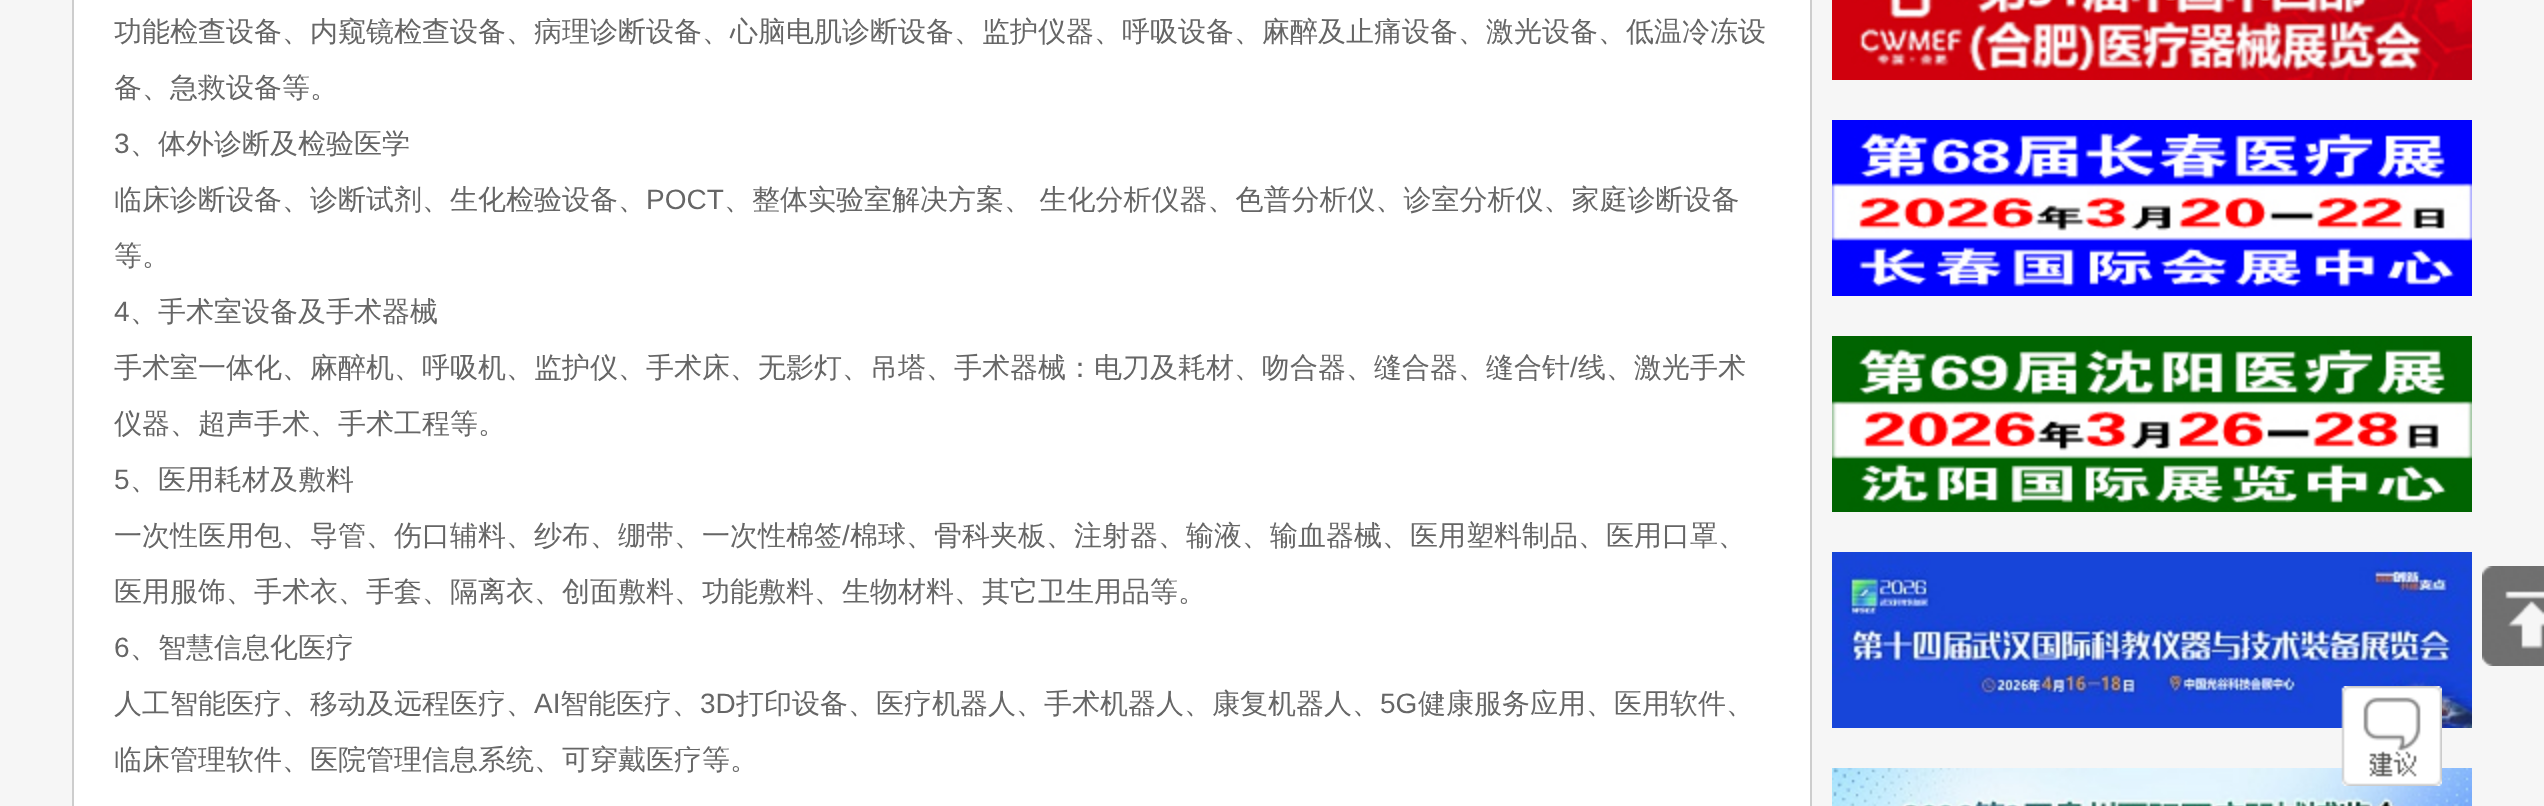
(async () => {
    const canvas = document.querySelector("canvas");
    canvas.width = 2544;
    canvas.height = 806;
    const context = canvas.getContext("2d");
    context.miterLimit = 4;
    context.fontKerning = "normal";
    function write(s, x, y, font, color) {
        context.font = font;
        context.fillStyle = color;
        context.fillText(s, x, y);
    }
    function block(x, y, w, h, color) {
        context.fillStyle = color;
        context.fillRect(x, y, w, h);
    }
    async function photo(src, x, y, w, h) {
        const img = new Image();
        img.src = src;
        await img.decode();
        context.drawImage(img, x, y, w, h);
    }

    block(0, 0, 2544, 806, "rgb(246, 246, 246)");
    context.fillStyle = "rgb(255, 255, 255)";
    context.beginPath();
    context.rect(73, -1, 1738, 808);
    context.fill();
    context.strokeStyle = "rgb(205, 205, 205)";
    context.lineWidth = 2;
    context.stroke();
    write("功能检查设备、内窥镜检查设备、病理诊断设备、心脑电肌诊断设备、监护仪器、呼吸设备、麻醉及止痛设备、激光设备、低温冷冻设", 114, 41, "500 28px WenQuanYi Zen Hei", "rgb(102, 102, 102)");
    write("备、急救设备等。", 114, 97, "500 28px WenQuanYi Zen Hei", "rgb(102, 102, 102)");
    write("3", 114, 153, "28px Liberation Sans", "rgb(102, 102, 102)");
    write("、体外诊断及检验医学", 130, 153, "500 28px WenQuanYi Zen Hei", "rgb(102, 102, 102)");
    write("临床诊断设备、诊断试剂、生化检验设备、", 114, 209, "500 28px WenQuanYi Zen Hei", "rgb(102, 102, 102)");
    write("POCT", 646, 209, "28px Liberation Sans", "rgb(102, 102, 102)");
    context.wordSpacing = "-1px";
    write("、整体实验室解决方案、 生化分析仪器、色普分析仪、诊室分析仪、家庭诊断设备", 724, 209, "500 28px WenQuanYi Zen Hei", "rgb(102, 102, 102)");
    context.wordSpacing = "0px";
    write("等。", 114, 265, "500 28px WenQuanYi Zen Hei", "rgb(102, 102, 102)");
    write("4", 114, 321, "28px Liberation Sans", "rgb(102, 102, 102)");
    write("、手术室设备及手术器械", 130, 321, "500 28px WenQuanYi Zen Hei", "rgb(102, 102, 102)");
    write("手术室一体化、麻醉机、呼吸机、监护仪、手术床、无影灯、吊塔、手术器械：电刀及耗材、吻合器、缝合器、缝合针", 114, 377, "500 28px WenQuanYi Zen Hei", "rgb(102, 102, 102)");
    write("/", 1570, 377, "28px Liberation Sans", "rgb(102, 102, 102)");
    write("线、激光手术", 1578, 377, "500 28px WenQuanYi Zen Hei", "rgb(102, 102, 102)");
    write("仪器、超声手术、手术工程等。", 114, 433, "500 28px WenQuanYi Zen Hei", "rgb(102, 102, 102)");
    write("5", 114, 489, "28px Liberation Sans", "rgb(102, 102, 102)");
    write("、医用耗材及敷料", 130, 489, "500 28px WenQuanYi Zen Hei", "rgb(102, 102, 102)");
    write("一次性医用包、导管、伤口辅料、纱布、绷带、一次性棉签", 114, 545, "500 28px WenQuanYi Zen Hei", "rgb(102, 102, 102)");
    write("/", 842, 545, "28px Liberation Sans", "rgb(102, 102, 102)");
    write("棉球、骨科夹板、注射器、输液、输血器械、医用塑料制品、医用口罩、", 850, 545, "500 28px WenQuanYi Zen Hei", "rgb(102, 102, 102)");
    write("医用服饰、手术衣、手套、隔离衣、创面敷料、功能敷料、生物材料、其它卫生用品等。", 114, 601, "500 28px WenQuanYi Zen Hei", "rgb(102, 102, 102)");
    write("6", 114, 657, "28px Liberation Sans", "rgb(102, 102, 102)");
    write("、智慧信息化医疗", 130, 657, "500 28px WenQuanYi Zen Hei", "rgb(102, 102, 102)");
    write("人工智能医疗、移动及远程医疗、", 114, 713, "500 28px WenQuanYi Zen Hei", "rgb(102, 102, 102)");
    write("AI", 534, 713, "28px Liberation Sans", "rgb(102, 102, 102)");
    write("智能医疗、", 560, 713, "500 28px WenQuanYi Zen Hei", "rgb(102, 102, 102)");
    write("3D", 700, 713, "28px Liberation Sans", "rgb(102, 102, 102)");
    write("打印设备、医疗机器人、手术机器人、康复机器人、", 736, 713, "500 28px WenQuanYi Zen Hei", "rgb(102, 102, 102)");
    write("5G", 1380, 713, "28px Liberation Sans", "rgb(102, 102, 102)");
    write("健康服务应用、医用软件、", 1418, 713, "500 28px WenQuanYi Zen Hei", "rgb(102, 102, 102)");
    write("临床管理软件、医院管理信息系统、可穿戴医疗等。", 114, 769, "500 28px WenQuanYi Zen Hei", "rgb(102, 102, 102)");
    await photo("media/1.png", 1832, 0, 640, 80);
    await photo("media/2.png", 1832, 120, 640, 176);
    await photo("media/3.png", 1832, 336, 640, 176);
    await photo("media/4.png", 1832, 552, 640, 176);
    await photo("media/5.png", 1832, 768, 640, 38);
    await photo("media/6.png", 2482, 566, 62, 100);
    await photo("media/7.png", 2341, 686, 101, 100);
})();
